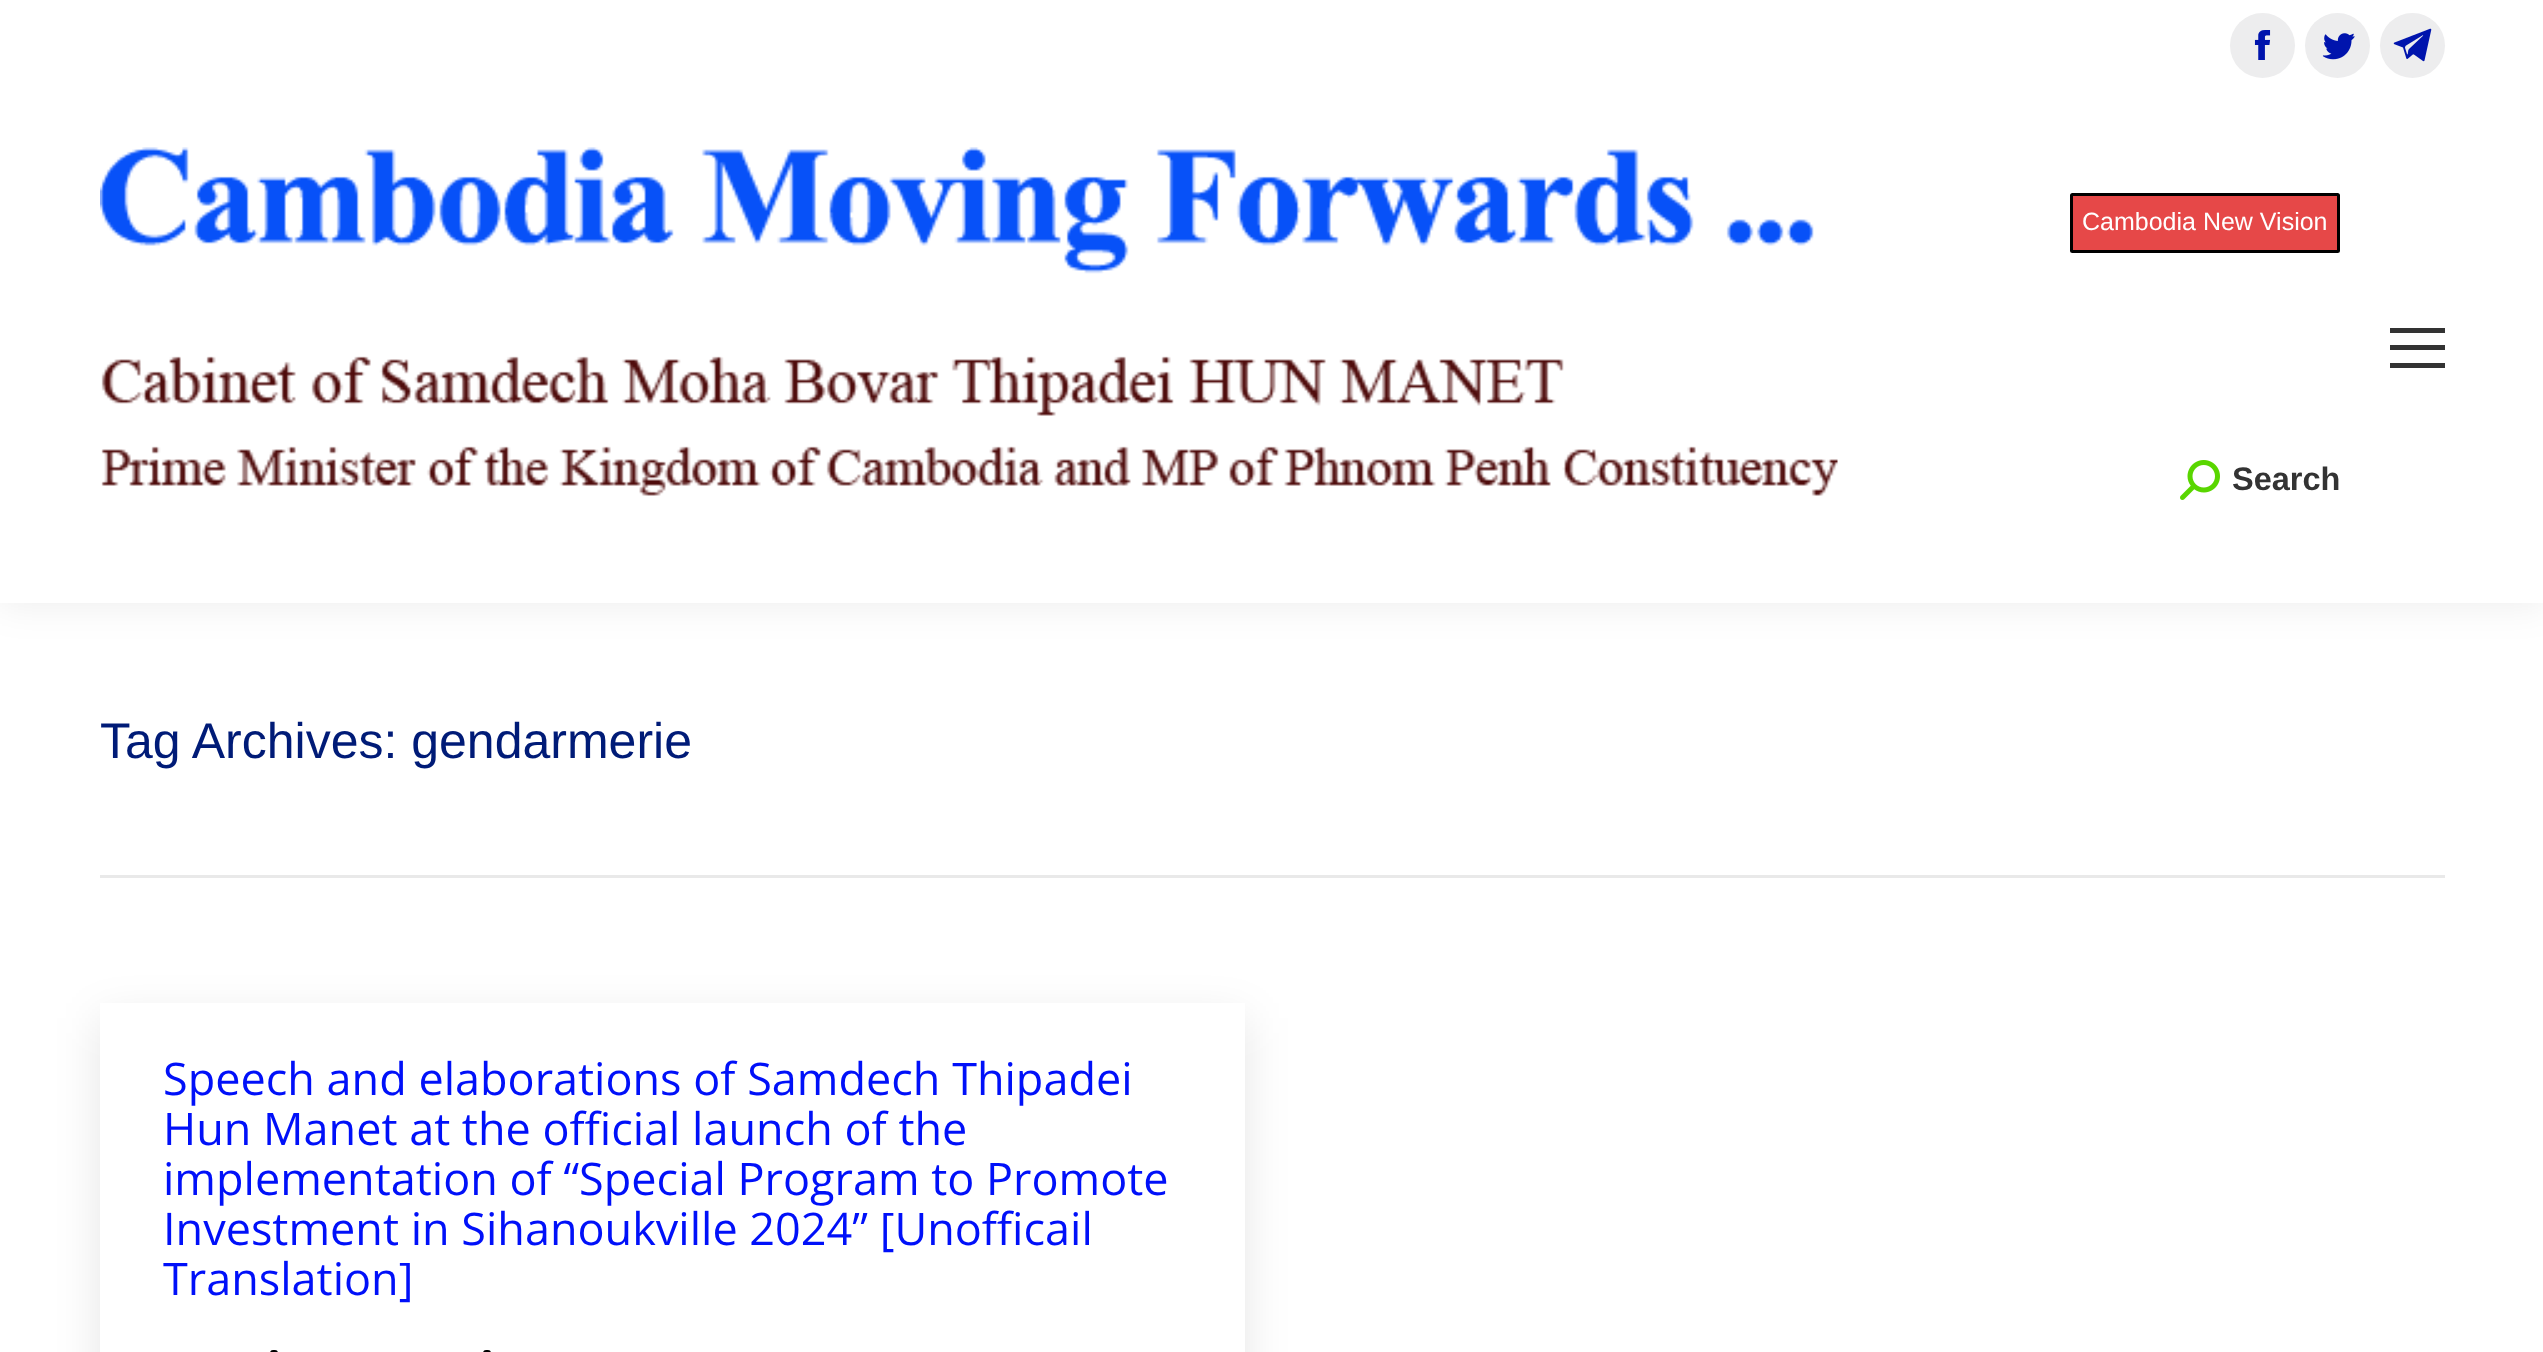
(async () => {
    const canvas = document.querySelector("canvas");
    canvas.width = 2543;
    canvas.height = 1352;
    const context = canvas.getContext("2d");
    context.miterLimit = 4;
    context.fontKerning = "normal";
    function write(s, x, y, font, color) {
        context.font = font;
        context.fillStyle = color;
        context.fillText(s, x, y);
    }
    function block(x, y, w, h, color) {
        context.fillStyle = color;
        context.fillRect(x, y, w, h);
    }
    function card(x, y, w, h, r, color) {
        context.fillStyle = color;
        context.beginPath();
        context.roundRect(x, y, w, h, r);
        context.fill();
    }
    async function photo(src, x, y, w, h) {
        const img = new Image();
        img.src = src;
        await img.decode();
        context.drawImage(img, x, y, w, h);
    }

    block(0, 0, 2543, 1352, "rgb(255, 255, 255)");
    context.fillStyle = "rgba(0, 0, 0, 0.07)";
    context.filter = "blur(19px)";
    context.beginPath();
    context.rect(-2, -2, 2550, 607);
    context.fill();
    context.filter = "none";
    block(0, 0, 2543, 603, "rgb(255, 255, 255)");
    context.fillStyle = "rgb(237, 237, 238)";
    context.beginPath();
    context.arc(2262.5, 45.5, 32.5, 0, Math.PI * 2);
    context.fill();
    await photo("media/1.png", 2254, 30, 17, 30);
    context.beginPath();
    context.arc(2337.5, 45.5, 32.5, 0, Math.PI * 2);
    context.fill();
    await photo("media/2.png", 2322, 33, 33, 27);
    context.beginPath();
    context.arc(2412.5, 45.5, 32.5, 0, Math.PI * 2);
    context.fill();
    await photo("media/3.png", 2393, 28, 39, 34);
    await photo("media/4.png", 100, 147, 1738, 349);
    context.fillStyle = "rgb(230, 72, 72)";
    context.beginPath();
    context.roundRect(2071.5, 194.5, 267, 57, 1);
    context.fill();
    context.strokeStyle = "rgb(0, 0, 0)";
    context.lineWidth = 3;
    context.stroke();
    write("Cambodia New Vision", 2082, 230, "25px Liberation Sans", "rgb(255, 255, 255)");
    await photo("media/5.png", 2180, 460, 40, 40);
    write("Search", 2232, 490, "bold 32.5px Liberation Sans", "rgb(51, 51, 51)");
    block(2390, 345, 55, 5, "rgb(51, 51, 51)");
    block(2390, 328, 55, 5, "rgb(51, 51, 51)");
    block(2390, 363, 55, 5, "rgb(51, 51, 51)");
    write("Tag Archives: gendarmerie", 100, 758, "50px Liberation Sans", "rgb(0, 27, 119)");
    block(100, 875, 2345, 3, "rgb(233, 233, 233)");
    context.save();
    context.beginPath();
    context.moveTo(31, 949);
    context.lineTo(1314, 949);
    context.lineTo(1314, 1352);
    context.lineTo(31, 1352);
    context.closePath();
    context.moveTo(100, 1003);
    context.lineTo(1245, 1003);
    context.lineTo(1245, 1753);
    context.lineTo(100, 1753);
    context.closePath();
    context.clip("evenodd");
    context.fillStyle = "rgba(0, 0, 0, 0.1)";
    context.filter = "blur(22.5px)";
    context.beginPath();
    context.rect(100, 1018, 1145, 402);
    context.fill();
    context.filter = "none";
    context.restore();
    write("Speech and elaborations of Samdech Thipadei", 163, 1095, "45px Open Sans", "rgb(0, 16, 249)");
    write("Hun Manet at the official launch of the", 163, 1145, "45px Open Sans", "rgb(0, 16, 249)");
    write("implementation of “Special Program to Promote", 163, 1195, "45px Open Sans", "rgb(0, 16, 249)");
    write("Investment in Sihanoukville 2024” [Unofficail", 163, 1245, "45px Open Sans", "rgb(0, 16, 249)");
    write("Translation]", 163, 1295, "45px Open Sans", "rgb(0, 16, 249)");
    card(270, 1350, 8, 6, 4, "rgb(0, 0, 0)");
    card(483, 1350, 8, 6, 4, "rgb(0, 0, 0)");
})();
